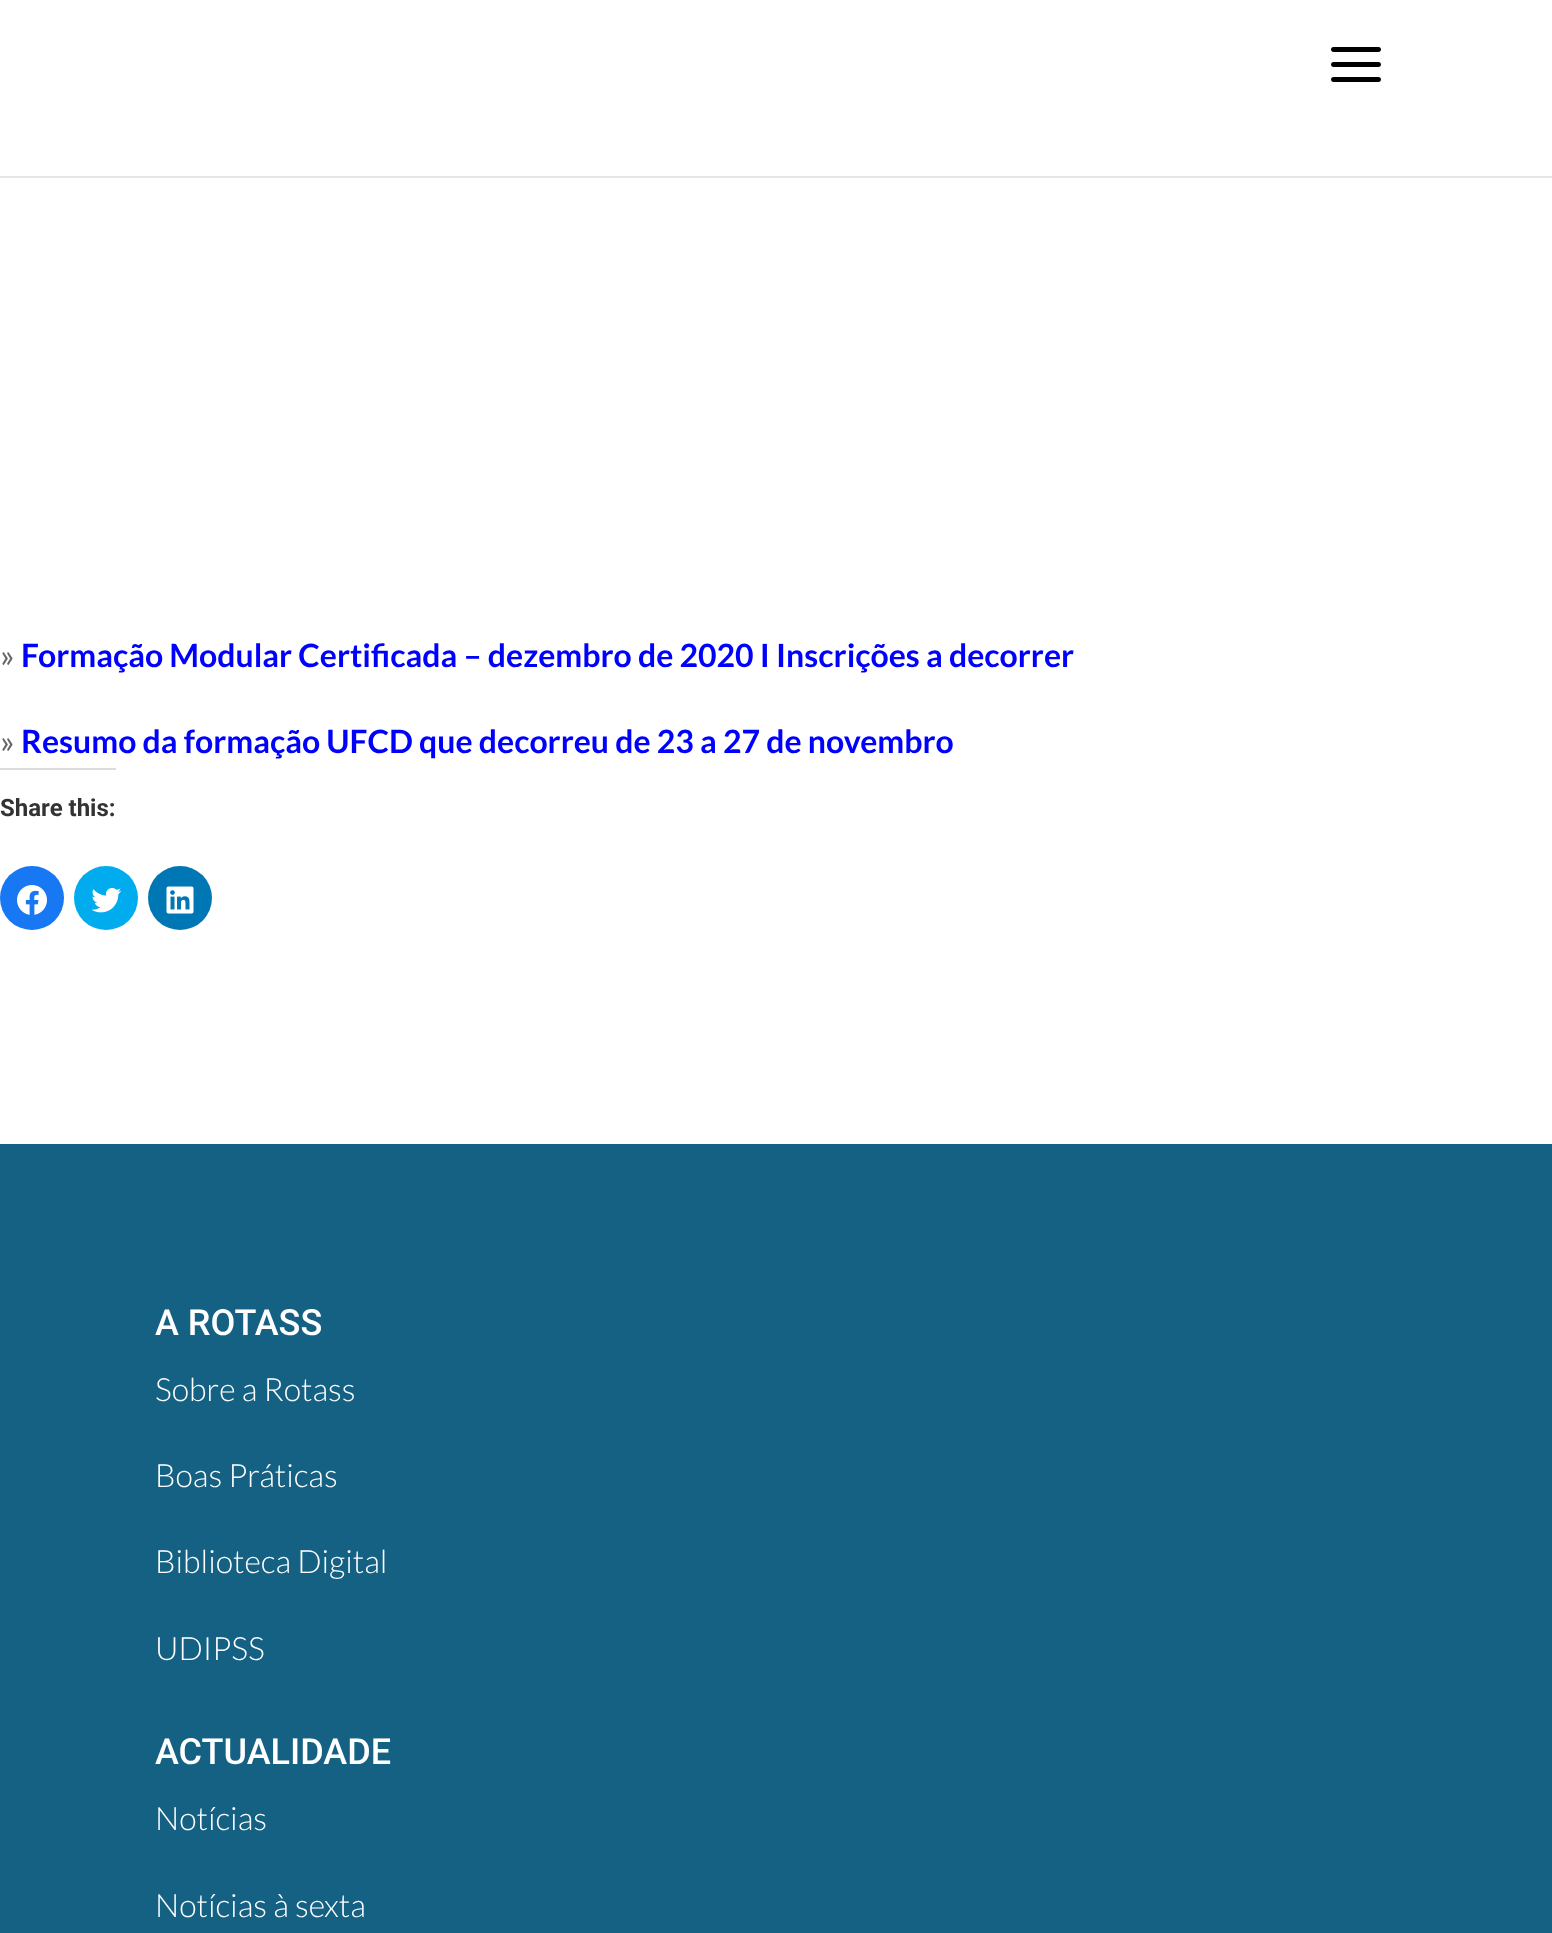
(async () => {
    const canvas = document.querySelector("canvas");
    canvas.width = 1552;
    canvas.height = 1933;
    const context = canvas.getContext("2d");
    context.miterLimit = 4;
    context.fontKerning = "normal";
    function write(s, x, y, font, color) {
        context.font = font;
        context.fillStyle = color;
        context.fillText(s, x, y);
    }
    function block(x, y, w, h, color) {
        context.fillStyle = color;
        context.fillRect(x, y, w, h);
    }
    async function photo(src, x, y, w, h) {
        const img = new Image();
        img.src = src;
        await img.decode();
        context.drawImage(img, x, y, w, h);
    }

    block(0, 0, 1552, 1933, "rgb(255, 255, 255)");
    block(0, 176, 1552, 2, "rgb(230, 230, 230)");
    await photo("media/1.png", 1331, 47, 50, 35);
    write("»", 0, 667, "32px Lato", "rgb(102, 102, 102)");
    write("Formação Modular Certificada – dezembro de 2020 I Inscrições a decorrer", 21, 667, "bold 32px Lato", "rgb(0, 0, 255)");
    write("»", 0, 753, "32px Lato", "rgb(102, 102, 102)");
    write("Resumo da formação UFCD que decorreu de 23 a 27 de novembro", 21, 753, "bold 32px Lato", "rgb(0, 0, 255)");
    block(0, 768, 116, 2, "rgb(220, 220, 222)");
    write("Share this:", 0, 816, "bold 24px Roboto", "rgb(51, 51, 51)");
    context.fillStyle = "rgb(24, 119, 242)";
    context.beginPath();
    context.arc(32, 898, 32, 0, Math.PI * 2);
    context.fill();
    await photo("media/2.png", 17, 885, 30, 30);
    context.fillStyle = "rgb(0, 172, 238)";
    context.beginPath();
    context.arc(106, 898, 32, 0, Math.PI * 2);
    context.fill();
    await photo("media/3.png", 91, 888, 31, 25);
    context.fillStyle = "rgb(0, 119, 181)";
    context.beginPath();
    context.arc(180, 898, 32, 0, Math.PI * 2);
    context.fill();
    await photo("media/4.png", 166, 886, 28, 28);
    block(0, 1144, 1552, 789, "rgb(20, 97, 131)");
    write("A ROTASS", 155, 1335, "500 36px Roboto", "rgb(255, 255, 255)");
    write("Sobre a Rotass", 155, 1401, "300 32px Lato", "rgb(255, 255, 255)");
    write("Boas Práticas", 155, 1487, "300 32px Lato", "rgb(255, 255, 255)");
    write("Biblioteca Digital", 155, 1573, "300 32px Lato", "rgb(255, 255, 255)");
    write("UDIPSS", 155, 1660, "300 32px Lato", "rgb(255, 255, 255)");
    write("ACTUALIDADE", 155, 1764, "500 36px Roboto", "rgb(255, 255, 255)");
    write("Notícias", 155, 1830, "300 32px Lato", "rgb(255, 255, 255)");
    write("Notícias à sexta", 155, 1917, "300 32px Lato", "rgb(255, 255, 255)");
})();
